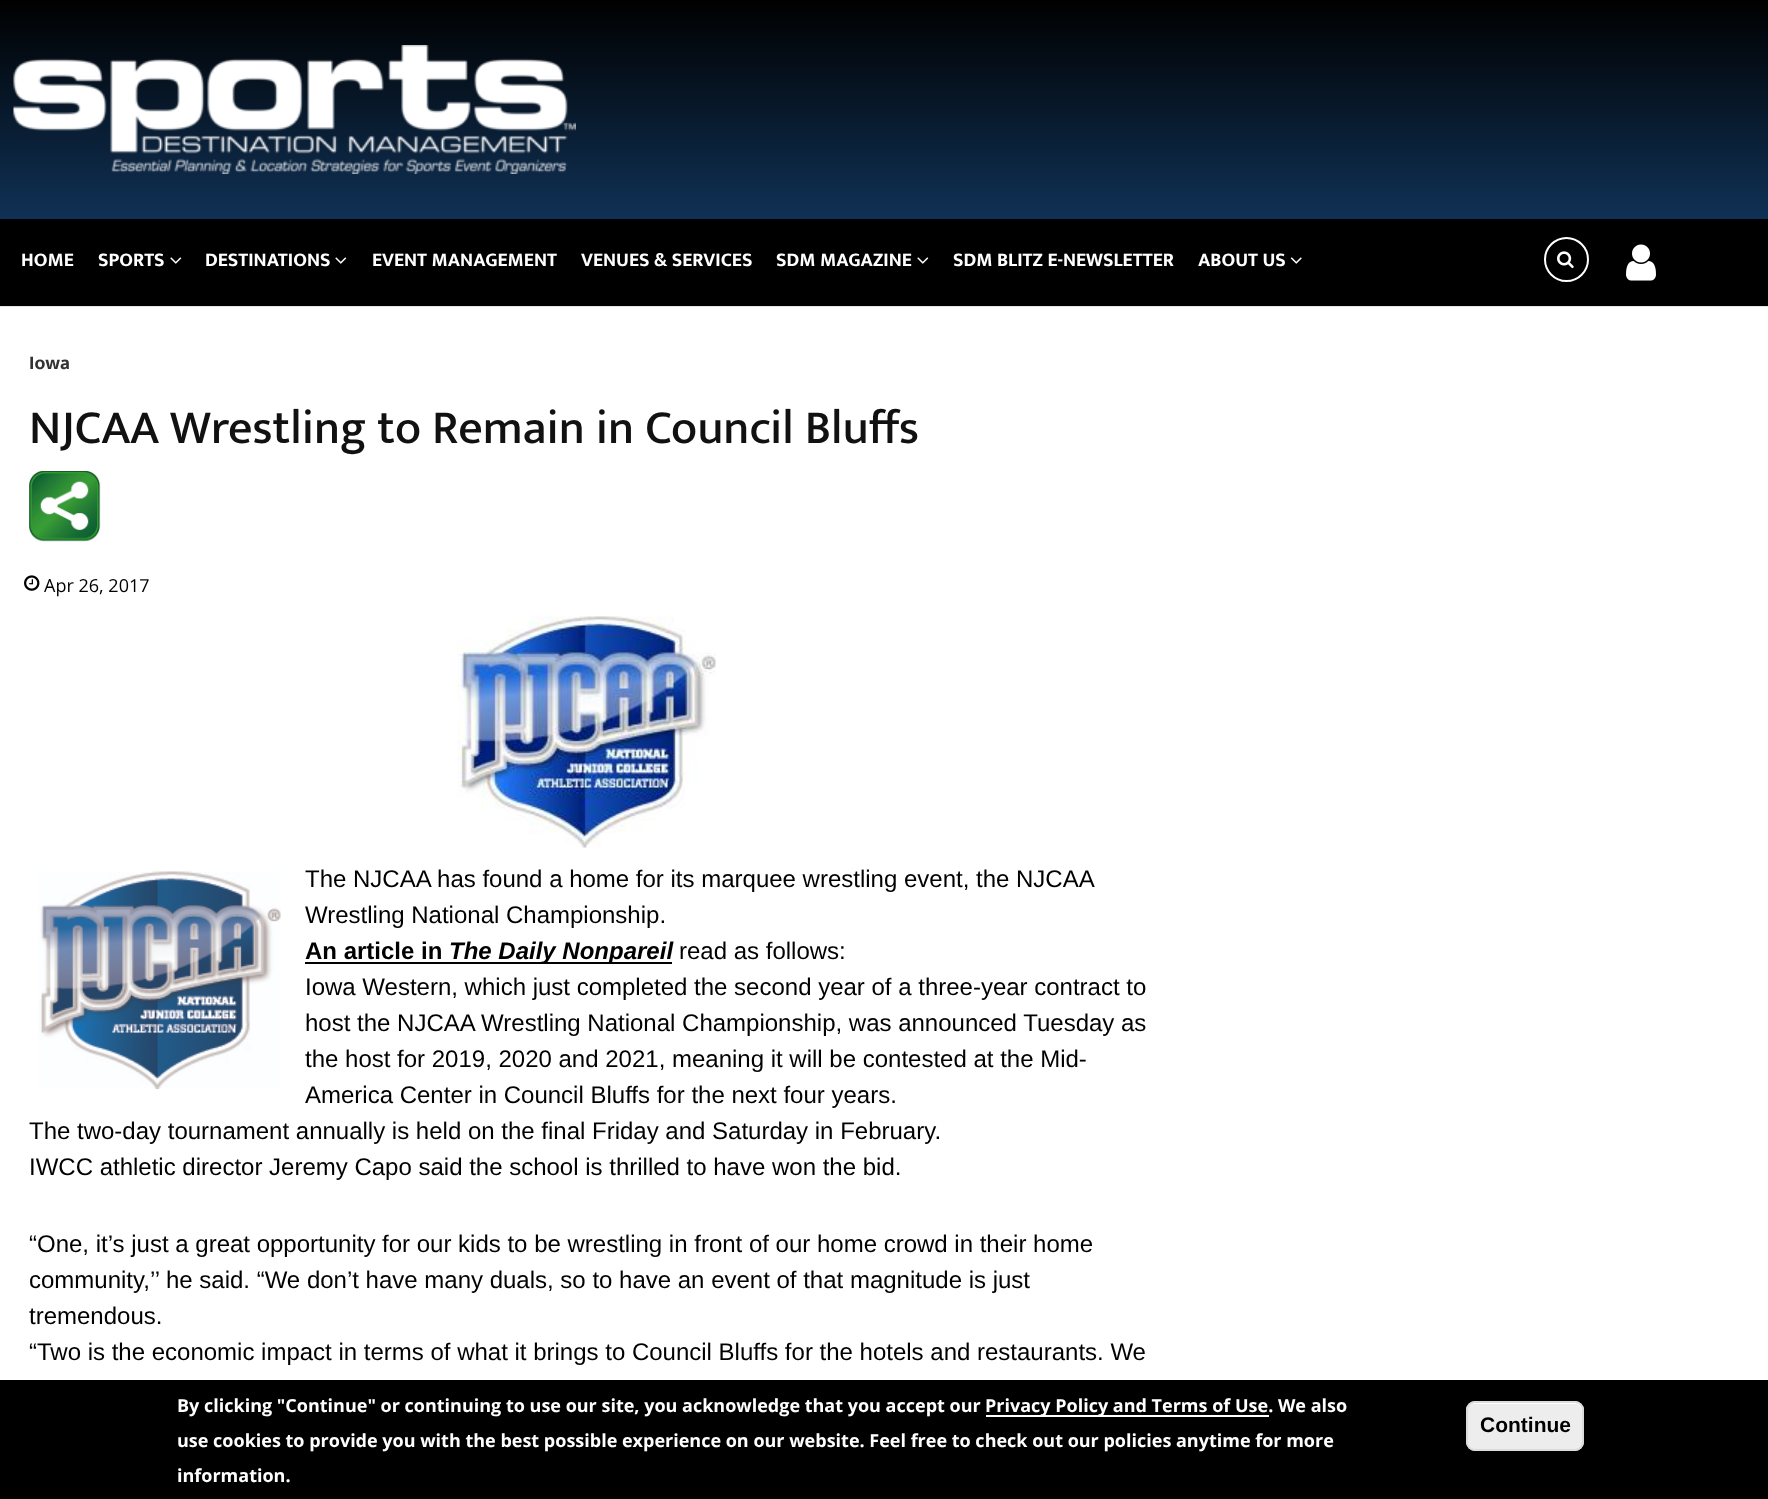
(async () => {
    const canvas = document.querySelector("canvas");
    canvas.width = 1768;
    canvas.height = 1499;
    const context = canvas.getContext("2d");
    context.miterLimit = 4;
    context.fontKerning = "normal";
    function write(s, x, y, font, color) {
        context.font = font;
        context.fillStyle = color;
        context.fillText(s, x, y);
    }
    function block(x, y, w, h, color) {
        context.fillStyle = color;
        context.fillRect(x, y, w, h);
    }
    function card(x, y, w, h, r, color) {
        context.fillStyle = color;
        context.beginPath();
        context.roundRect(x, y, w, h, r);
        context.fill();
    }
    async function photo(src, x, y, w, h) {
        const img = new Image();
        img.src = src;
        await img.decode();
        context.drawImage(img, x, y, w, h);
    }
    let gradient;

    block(0, 0, 1768, 1499, "rgb(255, 255, 255)");
    block(0, 306, 1768, 1, "rgb(230, 230, 230)");
    gradient = context.createLinearGradient(884, 0, 884, 306);
    gradient.addColorStop(0, "rgb(0, 0, 0)");
    gradient.addColorStop(1, "rgb(22, 69, 120)");
    context.fillStyle = gradient;
    context.fillRect(0, 0, 1768, 219);
    await photo("media/1.png", 13, 45, 563, 129);
    block(0, 219, 1768, 87, "rgb(0, 0, 0)");
    write("HOME", 21, 266, "bold 19.5px Mukta Vaani", "rgb(255, 255, 255)");
    write("SPORTS", 98, 266, "bold 19.5px Mukta Vaani", "rgb(255, 255, 255)");
    await photo("media/2.png", 170, 257, 12, 7);
    write("DESTINATIONS", 205, 266, "bold 19.5px Mukta Vaani", "rgb(255, 255, 255)");
    await photo("media/2.png", 335, 257, 12, 7);
    write("EVENT MANAGEMENT", 372, 266, "bold 19.5px Mukta Vaani", "rgb(255, 255, 255)");
    write("VENUES & SERVICES", 581, 266, "bold 19.5px Mukta Vaani", "rgb(255, 255, 255)");
    write("SDM MAGAZINE", 776, 266, "bold 19.5px Mukta Vaani", "rgb(255, 255, 255)");
    await photo("media/2.png", 917, 257, 12, 7);
    write("SDM BLITZ E-NEWSLETTER", 953, 266, "bold 19.5px Mukta Vaani", "rgb(255, 255, 255)");
    write("ABOUT US", 1198, 266, "bold 19.5px Mukta Vaani", "rgb(255, 255, 255)");
    await photo("media/3.png", 1290, 257, 12, 7);
    context.beginPath();
    context.arc(1566.5, 259.5, 21.5, 0, Math.PI * 2);
    context.strokeStyle = "rgb(255, 255, 255)";
    context.lineWidth = 2;
    context.stroke();
    await photo("media/4.png", 1557, 251, 17, 18);
    await photo("media/5.png", 1626, 244, 30, 37);
    write("Iowa", 29, 369, "bold 19.5px Mukta Vaani", "rgb(51, 51, 51)");
    write("NJCAA Wrestling to Remain in Council Bluffs", 29, 443, "500 48px Mukta Vaani", "rgb(17, 17, 17)");
    await photo("media/6.png", 29, 471, 72, 71);
    await photo("media/7.png", 24, 575, 16, 16);
    write("Apr 26, 2017", 44, 592, "18px Open Sans", "rgb(0, 0, 0)");
    await photo("media/8.png", 457, 616, 259, 232);
    await photo("media/9.png", 38, 871, 243, 218);
    write("The NJCAA has found a home for its marquee wrestling event, the NJCAA", 305, 887, "24px Liberation Sans", "rgb(0, 0, 0)");
    write("Wrestling National Championship.", 305, 923, "24px Liberation Sans", "rgb(0, 0, 0)");
    write("An article in", 305, 959, "bold 24px Liberation Sans", "rgb(0, 0, 0)");
    block(305, 962, 367, 2, "rgb(0, 0, 0)");
    write("The Daily Nonpareil", 449, 959, "italic bold 24px Liberation Sans", "rgb(0, 0, 0)");
    write("read as follows:", 679, 959, "24px Liberation Sans", "rgb(0, 0, 0)");
    write("Iowa Western, which just completed the second year of a three-year contract to", 305, 995, "24px Liberation Sans", "rgb(0, 0, 0)");
    write("host the NJCAA Wrestling National Championship, was announced Tuesday as", 305, 1031, "24px Liberation Sans", "rgb(0, 0, 0)");
    write("the host for 2019, 2020 and 2021, meaning it will be contested at the Mid-", 305, 1067, "24px Liberation Sans", "rgb(0, 0, 0)");
    write("America Center in Council Bluffs for the next four years.", 305, 1103, "24px Liberation Sans", "rgb(0, 0, 0)");
    write("The two-day tournament annually is held on the final Friday and Saturday in February.", 29, 1139, "24px Liberation Sans", "rgb(0, 0, 0)");
    write("IWCC athletic director Jeremy Capo said the school is thrilled to have won the bid.", 29, 1175, "24px Liberation Sans", "rgb(0, 0, 0)");
    write("“One, it’s just a great opportunity for our kids to be wrestling in front of our home crowd in their home", 29, 1252, "24px Liberation Sans", "rgb(0, 0, 0)");
    write("community,’’ he said. “We don’t have many duals, so to have an event of that magnitude is just", 29, 1288, "24px Liberation Sans", "rgb(0, 0, 0)");
    write("tremendous.", 29, 1324, "24px Liberation Sans", "rgb(0, 0, 0)");
    write("“Two is the economic impact in terms of what it brings to Council Bluffs for the hotels and restaurants. We", 29, 1360, "24px Liberation Sans", "rgb(0, 0, 0)");
    block(0, 1380, 1768, 119, "rgb(0, 0, 0)");
    write("By clicking \"Continue\" or continuing to use our site, you acknowledge that you accept our", 177, 1412, "bold 18px Open Sans", "rgb(255, 255, 255)");
    block(986, 1415, 283, 2, "rgb(255, 255, 255)");
    write("Privacy Policy and Terms of Use. We also", 985, 1412, "bold 18px Open Sans", "rgb(255, 255, 255)");
    write("use cookies to provide you with the best possible experience on our website. Feel free to check out our policies anytime for more", 177, 1447, "bold 18px Open Sans", "rgb(255, 255, 255)");
    write("information.", 177, 1482, "bold 18px Open Sans", "rgb(255, 255, 255)");
    card(1466, 1401, 118, 50, 9, "rgb(237, 237, 237)");
    context.fillStyle = "rgb(255, 255, 255)";
    context.beginPath();
    context.moveTo(1474, 1404);
    context.lineTo(1575, 1404);
    context.bezierCurveTo(1584, 1404, 1582, 1417, 1582, 1422);
    context.lineTo(1582, 1446);
    context.bezierCurveTo(1582, 1444, 1583, 1443, 1583, 1441);
    context.lineTo(1583, 1411);
    context.bezierCurveTo(1583, 1407, 1579, 1403, 1575, 1403);
    context.lineTo(1475, 1403);
    context.bezierCurveTo(1471, 1403, 1467, 1407, 1467, 1411);
    context.lineTo(1467, 1412);
    context.bezierCurveTo(1467, 1407, 1470, 1404, 1474, 1404);
    context.closePath();
    context.fill();
    context.beginPath();
    context.roundRect(1467, 1402, 116, 48, 8);
    context.strokeStyle = "rgb(220, 220, 220)";
    context.stroke();
    write("Continue", 1480, 1432, "bold 21px Liberation Sans", "rgb(0, 0, 0)");
})();
